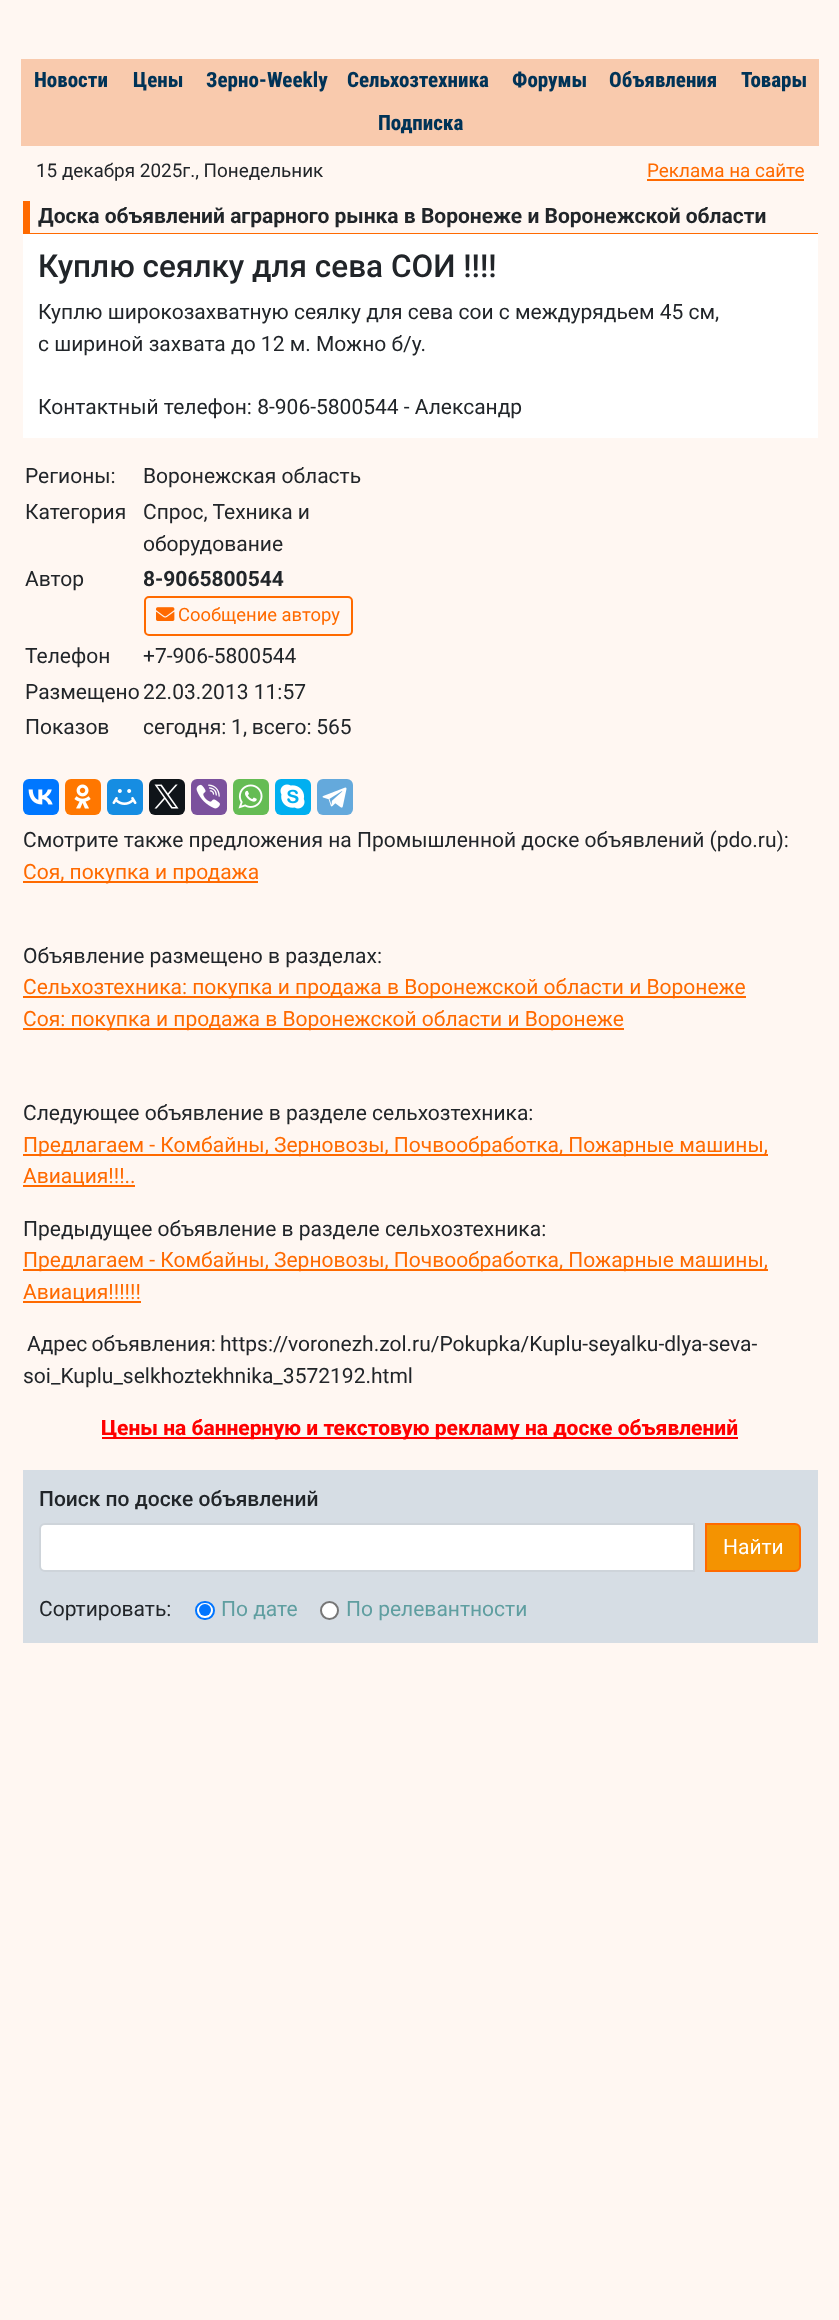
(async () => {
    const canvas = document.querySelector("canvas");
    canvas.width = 839;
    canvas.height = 2320;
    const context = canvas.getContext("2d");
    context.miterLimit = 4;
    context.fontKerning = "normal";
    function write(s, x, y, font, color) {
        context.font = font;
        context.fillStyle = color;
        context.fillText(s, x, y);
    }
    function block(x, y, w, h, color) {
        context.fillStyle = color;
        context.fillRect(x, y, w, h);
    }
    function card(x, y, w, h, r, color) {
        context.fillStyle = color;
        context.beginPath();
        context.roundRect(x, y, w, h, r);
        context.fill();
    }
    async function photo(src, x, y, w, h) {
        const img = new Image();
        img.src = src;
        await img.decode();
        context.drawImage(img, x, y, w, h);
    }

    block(0, 0, 839, 2320, "rgb(255, 247, 242)");
    block(21, 59, 798, 87, "rgb(249, 202, 173)");
    write("Новости", 34, 87, "800 21px Roboto Condensed", "rgb(0, 51, 87)");
    write("Цены", 133, 87, "800 21px Roboto Condensed", "rgb(0, 51, 87)");
    write("Зерно-Weekly", 206, 87, "800 21px Roboto Condensed", "rgb(0, 51, 87)");
    write("Сельхозтехника", 347, 87, "800 21px Roboto Condensed", "rgb(0, 51, 87)");
    write("Форумы", 512, 87, "800 21px Roboto Condensed", "rgb(0, 51, 87)");
    write("Объявления", 609, 87, "800 21px Roboto Condensed", "rgb(0, 51, 87)");
    write("Товары", 741, 87, "800 21px Roboto Condensed", "rgb(0, 51, 87)");
    write("Подписка", 378, 130, "800 21px Roboto Condensed", "rgb(0, 51, 87)");
    write("15 декабря 2025г., Понедельник", 36, 177, "18.9px Roboto", "rgb(33, 37, 41)");
    write("Реклама на сайте", 647, 177, "18.9px Roboto", "rgb(255, 106, 0)");
    block(647, 179, 157, 2, "rgb(255, 106, 0)");
    block(23, 233, 795, 1, "rgb(255, 106, 0)");
    block(23, 201, 7, 33, "rgb(255, 106, 0)");
    write("Доска объявлений аграрного рынка в Воронеже и Воронежской области", 38, 223, "bold 21px Roboto", "rgb(33, 37, 41)");
    block(23, 234, 795, 204, "rgb(255, 255, 255)");
    write("Куплю сеялку для сева СОИ !!!!", 38, 277, "500 31.5px Roboto", "rgb(33, 37, 41)");
    write("Куплю широкозахватную сеялку для сева сои с междурядьем 45 см,", 38, 319, "21px Roboto", "rgb(33, 37, 41)");
    write("с шириной захвата до 12 м. Можно б/у.", 38, 351, "21px Roboto", "rgb(33, 37, 41)");
    write("Контактный телефон: 8-906-5800544 - Александр", 38, 414, "21px Roboto", "rgb(33, 37, 41)");
    write("Регионы:", 25, 483, "21px Roboto", "rgb(33, 37, 41)");
    write("Воронежская область", 143, 483, "21px Roboto", "rgb(33, 37, 41)");
    write("Категория", 25, 519, "21px Roboto", "rgb(33, 37, 41)");
    write("Спрос, Техника и", 143, 519, "21px Roboto", "rgb(33, 37, 41)");
    write("оборудование", 143, 551, "21px Roboto", "rgb(33, 37, 41)");
    write("Автор", 25, 586, "21px Roboto", "rgb(33, 37, 41)");
    write("8-9065800544", 143, 586, "bold 21px Roboto", "rgb(33, 37, 41)");
    context.beginPath();
    context.roundRect(145, 597, 207, 38, 4);
    context.strokeStyle = "rgb(255, 106, 0)";
    context.lineWidth = 2;
    context.stroke();
    await photo("media/1.png", 156, 607, 19, 14);
    write("Сообщение автору", 178, 621, "18.4px Roboto", "rgb(255, 106, 0)");
    write("Телефон", 25, 663, "21px Roboto", "rgb(33, 37, 41)");
    write("+7-906-5800544", 143, 663, "21px Roboto", "rgb(33, 37, 41)");
    write("Размещено", 25, 699, "21px Roboto", "rgb(33, 37, 41)");
    write("22.03.2013 11:57", 143, 699, "21px Roboto", "rgb(33, 37, 41)");
    write("Показов", 25, 734, "21px Roboto", "rgb(33, 37, 41)");
    context.wordSpacing = "-0.5px";
    write("cегодня: 1, всего: 565", 143, 734, "21px Roboto", "rgb(33, 37, 41)");
    card(23, 779, 36, 36, 6, "rgb(0, 119, 255)");
    await photo("media/2.png", 28, 789, 25, 16);
    card(65, 779, 36, 36, 6, "rgb(255, 119, 0)");
    await photo("media/3.png", 74, 784, 17, 25);
    card(107, 779, 36, 36, 6, "rgb(22, 141, 226)");
    await photo("media/4.png", 112, 789, 25, 16);
    card(149, 779, 36, 36, 6, "rgb(15, 20, 25)");
    await photo("media/5.png", 154, 784, 25, 25);
    card(191, 779, 36, 36, 6, "rgb(123, 81, 157)");
    await photo("media/6.png", 196, 784, 24, 25);
    card(233, 779, 36, 36, 6, "rgb(101, 188, 84)");
    await photo("media/7.png", 238, 784, 25, 25);
    card(275, 779, 36, 36, 6, "rgb(0, 175, 240)");
    await photo("media/8.png", 280, 784, 25, 25);
    card(317, 779, 36, 36, 6, "rgb(100, 169, 220)");
    await photo("media/9.png", 322, 787, 25, 21);
    context.wordSpacing = "0px";
    write("Смотрите также предложения на Промышленной доске объявлений (pdo.ru):", 23, 847, "21px Roboto", "rgb(33, 37, 41)");
    block(23, 881, 235, 2, "rgb(255, 106, 0)");
    write("Соя, покупка и продажа", 23, 879, "21px Roboto", "rgb(255, 106, 0)");
    write("Объявление размещено в разделах:", 23, 963, "21px Roboto", "rgb(33, 37, 41)");
    block(23, 996, 723, 2, "rgb(255, 106, 0)");
    write("Сельхозтехника: покупка и продажа в Воронежской области и Воронеже", 23, 994, "21px Roboto", "rgb(255, 106, 0)");
    block(23, 1028, 601, 2, "rgb(255, 106, 0)");
    write("Соя: покупка и продажа в Воронежской области и Воронеже", 23, 1026, "21px Roboto", "rgb(255, 106, 0)");
    write("Следующее объявление в разделе сельхозтехника:", 23, 1120, "21px Roboto", "rgb(33, 37, 41)");
    block(23, 1154, 745, 2, "rgb(255, 106, 0)");
    write("Предлагаем - Комбайны, Зерновозы, Почвообработка, Пожарные машины,", 23, 1152, "21px Roboto", "rgb(255, 106, 0)");
    block(23, 1185, 112, 2, "rgb(255, 106, 0)");
    write("Авиация!!!..", 23, 1183, "21px Roboto", "rgb(255, 106, 0)");
    write("Предыдущее объявление в разделе сельхозтехника:", 23, 1236, "21px Roboto", "rgb(33, 37, 41)");
    block(23, 1269, 745, 2, "rgb(255, 106, 0)");
    write("Предлагаем - Комбайны, Зерновозы, Почвообработка, Пожарные машины,", 23, 1267, "21px Roboto", "rgb(255, 106, 0)");
    block(23, 1301, 118, 2, "rgb(255, 106, 0)");
    write("Авиация!!!!!!", 23, 1299, "21px Roboto", "rgb(255, 106, 0)");
    context.wordSpacing = "-1px";
    write("Адрес объявления: https://voronezh.zol.ru/Pokupka/Kuplu-seyalku-dlya-seva-", 27, 1351, "21px Roboto", "rgb(33, 37, 41)");
    context.wordSpacing = "0px";
    write("soi_Kuplu_selkhoztekhnika_3572192.html", 23, 1383, "21px Roboto", "rgb(33, 37, 41)");
    block(102, 1437, 636, 2, "rgb(255, 0, 0)");
    write("Цены на баннерную и текстовую рекламу на доске объявлений", 101, 1435, "800 21px Roboto", "rgb(255, 0, 0)");
    block(23, 1470, 795, 173, "rgb(214, 221, 228)");
    write("Поиск по доске объявлений", 39, 1506, "500 21px Roboto", "rgb(33, 37, 41)");
    context.fillStyle = "rgb(255, 255, 255)";
    context.beginPath();
    context.roundRect(40, 1524, 654, 47, [5, 0, 0, 5]);
    context.fill();
    context.strokeStyle = "rgb(206, 212, 218)";
    context.stroke();
    context.fillStyle = "rgb(244, 147, 1)";
    context.beginPath();
    context.roundRect(706, 1524, 94, 47, [0, 5, 5, 0]);
    context.fill();
    context.strokeStyle = "rgb(255, 106, 0)";
    context.stroke();
    write("Найти", 723, 1554, "21px Roboto", "rgb(255, 255, 255)");
    write("Сортировать:", 39, 1616, "21px Roboto", "rgb(33, 37, 41)");
    context.fillStyle = "rgb(255, 255, 255)";
    context.beginPath();
    context.roundRect(196, 1602, 18, 17, 8.5);
    context.fill();
    context.strokeStyle = "rgb(0, 117, 255)";
    context.stroke();
    context.fillStyle = "rgb(0, 117, 255)";
    context.beginPath();
    context.arc(205, 1610, 6, 0, Math.PI * 2);
    context.fill();
    write("По дате", 221, 1616, "21px Roboto", "rgb(95, 158, 160)");
    context.fillStyle = "rgb(255, 255, 255)";
    context.beginPath();
    context.arc(329.5, 1610.5, 8.5, 0, Math.PI * 2);
    context.fill();
    context.strokeStyle = "rgb(118, 118, 118)";
    context.stroke();
    write("По релевантности", 346, 1616, "21px Roboto", "rgb(95, 158, 160)");
})();
